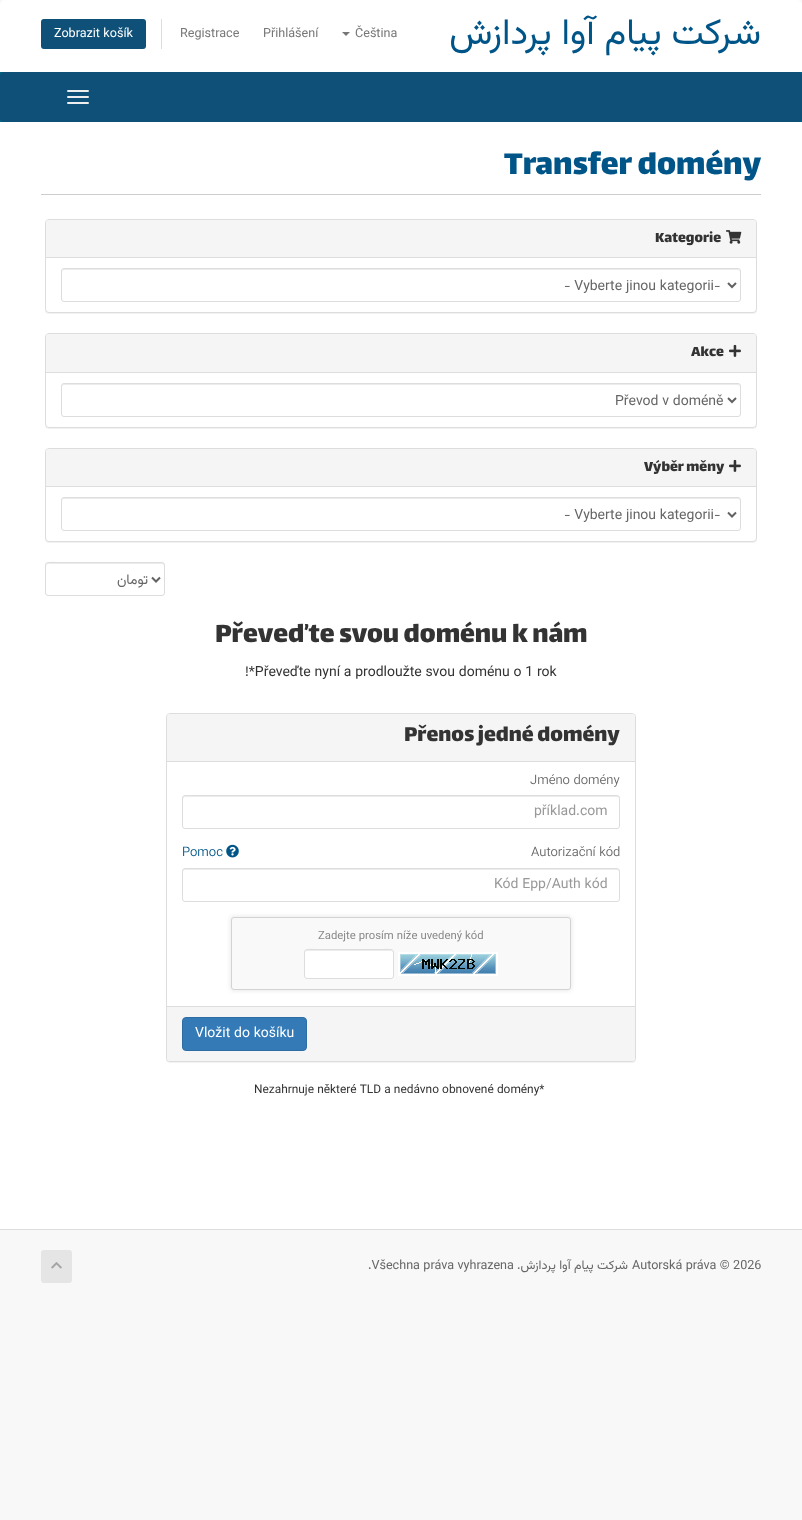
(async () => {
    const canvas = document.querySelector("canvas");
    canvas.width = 802;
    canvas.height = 1520;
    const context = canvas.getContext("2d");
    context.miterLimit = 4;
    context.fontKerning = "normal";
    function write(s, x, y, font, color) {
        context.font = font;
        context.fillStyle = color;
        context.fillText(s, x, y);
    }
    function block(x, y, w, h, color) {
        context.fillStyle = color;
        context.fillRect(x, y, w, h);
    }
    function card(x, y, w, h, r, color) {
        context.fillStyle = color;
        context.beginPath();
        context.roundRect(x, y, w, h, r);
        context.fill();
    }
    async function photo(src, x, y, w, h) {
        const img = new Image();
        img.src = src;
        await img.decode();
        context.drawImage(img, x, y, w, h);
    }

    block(0, 0, 802, 1520, "rgb(248, 248, 248)");
    context.fillStyle = "rgb(255, 255, 255)";
    context.beginPath();
    context.roundRect(0, 0, 802, 72, [5, 5, 0, 0]);
    context.fill();
    block(161, 19, 1, 30, "rgb(221, 221, 221)");
    card(41, 19, 105, 30, 3, "rgb(14, 80, 119)");
    write("Zobrazit košík", 54, 37, "12.6px Vazirmatn", "rgb(255, 255, 255)");
    write("Registrace", 180, 37, "12.6px Vazirmatn", "rgb(119, 119, 119)");
    write("Přihlášení", 263, 37, "12.6px Vazirmatn", "rgb(119, 119, 119)");
    context.beginPath();
    context.moveTo(342, 32);
    context.lineTo(350, 32);
    context.lineTo(346, 36);
    context.closePath();
    context.fill();
    write("Čeština", 355, 37, "12.6px Vazirmatn", "rgb(119, 119, 119)");
    context.direction = "rtl";
    write("شرکت پیام آوا پردازش", 761, 44, "36.5px Vazirmatn", "rgb(0, 85, 136)");
    block(0, 72, 802, 50, "rgb(0, 102, 135)");
    card(0, 72, 802, 50, 4, "rgb(14, 80, 119)");
    card(67, 90, 22, 2, 1, "rgb(238, 238, 238)");
    card(67, 96, 22, 2, 1, "rgb(238, 238, 238)");
    card(67, 102, 22, 2, 1, "rgb(238, 238, 238)");
    block(0, 122, 802, 1107, "rgb(255, 255, 255)");
    block(41, 194, 720, 1, "rgb(204, 204, 204)");
    context.direction = "ltr";
    write("Transfer domény", 504, 174, "36px Lalezar", "rgb(0, 85, 136)");
    context.fillStyle = "rgba(0, 0, 0, 0.05)";
    context.filter = "blur(0.5px)";
    context.beginPath();
    context.roundRect(45, 220, 712, 94, 4);
    context.fill();
    context.filter = "none";
    context.fillStyle = "rgb(255, 255, 255)";
    context.beginPath();
    context.roundRect(45.5, 219.5, 711, 93, 3.5);
    context.fill();
    context.strokeStyle = "rgb(221, 221, 221)";
    context.stroke();
    context.fillStyle = "rgb(245, 245, 245)";
    context.beginPath();
    context.roundRect(46, 220, 710, 38, [3, 3, 0, 0]);
    context.fill();
    block(46, 257, 710, 1, "rgb(221, 221, 221)");
    write("Kategorie", 655, 242, "16px Lalezar", "rgb(51, 51, 51)");
    await photo("media/1.png", 726, 230, 16, 14);
    context.fillStyle = "rgb(236, 236, 236)";
    context.beginPath();
    context.moveTo(64, 270);
    context.lineTo(738, 270);
    context.bezierCurveTo(739, 270, 740, 271, 740, 272);
    context.bezierCurveTo(740, 271, 740, 269, 738, 269);
    context.lineTo(64, 269);
    context.bezierCurveTo(62, 269, 62, 271, 62, 272);
    context.bezierCurveTo(62, 271, 63, 270, 64, 270);
    context.closePath();
    context.fill();
    context.beginPath();
    context.roundRect(61.5, 268.5, 679, 33, 2.5);
    context.stroke();
    context.beginPath();
    context.moveTo(728, 283);
    context.lineTo(732, 287);
    context.lineTo(736, 283);
    context.strokeStyle = "rgb(98, 98, 98)";
    context.lineWidth = 2;
    context.stroke();
    write("- Vyberte jinou kategorii-", 564, 290, "14px Vazirmatn", "rgb(102, 102, 102)");
    context.fillStyle = "rgba(0, 0, 0, 0.05)";
    context.filter = "blur(0.5px)";
    context.beginPath();
    context.roundRect(45, 334, 712, 95, 4);
    context.fill();
    context.filter = "none";
    context.fillStyle = "rgb(255, 255, 255)";
    context.beginPath();
    context.roundRect(45.5, 333.5, 711, 94, 3.5);
    context.fill();
    context.strokeStyle = "rgb(221, 221, 221)";
    context.lineWidth = 1;
    context.stroke();
    context.fillStyle = "rgb(245, 245, 245)";
    context.beginPath();
    context.roundRect(46, 334, 710, 39, [3, 3, 0, 0]);
    context.fill();
    block(46, 372, 710, 1, "rgb(221, 221, 221)");
    write("Akce", 691, 356, "16px Lalezar", "rgb(51, 51, 51)");
    await photo("media/2.png", 729, 344, 12, 13);
    context.fillStyle = "rgb(236, 236, 236)";
    context.beginPath();
    context.moveTo(64, 385);
    context.lineTo(738, 385);
    context.bezierCurveTo(739, 385, 740, 386, 740, 387);
    context.bezierCurveTo(740, 386, 740, 384, 738, 384);
    context.lineTo(64, 384);
    context.bezierCurveTo(62, 384, 62, 386, 62, 387);
    context.bezierCurveTo(62, 386, 63, 385, 64, 385);
    context.closePath();
    context.fill();
    context.beginPath();
    context.roundRect(61.5, 383.5, 679, 33, 2.5);
    context.stroke();
    context.beginPath();
    context.moveTo(728, 398);
    context.lineTo(732, 402);
    context.lineTo(736, 398);
    context.strokeStyle = "rgb(98, 98, 98)";
    context.lineWidth = 2;
    context.stroke();
    write("Převod v doméně", 615, 405, "14px Vazirmatn", "rgb(102, 102, 102)");
    context.fillStyle = "rgba(0, 0, 0, 0.05)";
    context.filter = "blur(0.5px)";
    context.beginPath();
    context.roundRect(45, 449, 712, 94, 4);
    context.fill();
    context.filter = "none";
    context.fillStyle = "rgb(255, 255, 255)";
    context.beginPath();
    context.roundRect(45.5, 448.5, 711, 93, 3.5);
    context.fill();
    context.strokeStyle = "rgb(221, 221, 221)";
    context.lineWidth = 1;
    context.stroke();
    context.fillStyle = "rgb(245, 245, 245)";
    context.beginPath();
    context.roundRect(46, 449, 710, 38, [3, 3, 0, 0]);
    context.fill();
    block(46, 486, 710, 1, "rgb(221, 221, 221)");
    write("Výběr měny", 644, 471, "16px Lalezar", "rgb(51, 51, 51)");
    await photo("media/2.png", 729, 459, 12, 13);
    context.fillStyle = "rgb(236, 236, 236)";
    context.beginPath();
    context.moveTo(64, 499);
    context.lineTo(738, 499);
    context.bezierCurveTo(739, 499, 740, 500, 740, 501);
    context.bezierCurveTo(740, 500, 740, 498, 738, 498);
    context.lineTo(64, 498);
    context.bezierCurveTo(62, 498, 62, 500, 62, 501);
    context.bezierCurveTo(62, 500, 63, 499, 64, 499);
    context.closePath();
    context.fill();
    context.beginPath();
    context.roundRect(61.5, 497.5, 679, 33, 2.5);
    context.stroke();
    context.beginPath();
    context.moveTo(728, 512.5);
    context.lineTo(732, 516.5);
    context.lineTo(736, 512.5);
    context.strokeStyle = "rgb(98, 98, 98)";
    context.lineWidth = 2;
    context.stroke();
    write("- Vyberte jinou kategorii-", 564, 519, "14px Vazirmatn", "rgb(102, 102, 102)");
    context.fillStyle = "rgb(236, 236, 236)";
    context.beginPath();
    context.moveTo(48, 564);
    context.lineTo(162, 564);
    context.bezierCurveTo(163, 564, 164, 565, 164, 566);
    context.bezierCurveTo(164, 565, 164, 564, 163, 563);
    context.lineTo(67, 563);
    context.bezierCurveTo(61, 563, 46, 559, 46, 566);
    context.bezierCurveTo(46, 565, 47, 564, 48, 564);
    context.closePath();
    context.fill();
    context.beginPath();
    context.roundRect(45.5, 562.5, 119, 33, 2.5);
    context.strokeStyle = "rgb(221, 221, 221)";
    context.lineWidth = 1;
    context.stroke();
    context.beginPath();
    context.moveTo(152, 577.5);
    context.lineTo(156, 581.5);
    context.lineTo(160, 577.5);
    context.strokeStyle = "rgb(98, 98, 98)";
    context.lineWidth = 2;
    context.stroke();
    context.direction = "rtl";
    write("تومان", 148, 584, "14px Vazirmatn", "rgb(102, 102, 102)");
    context.direction = "ltr";
    write("Převeďte svou doménu k nám", 215, 642, "30px Lalezar", "rgb(51, 51, 51)");
    write("!*Převeďte nyní a prodloužte svou doménu o 1 rok", 245, 676, "14px Vazirmatn", "rgb(51, 51, 51)");
    context.fillStyle = "rgba(0, 0, 0, 0.05)";
    context.filter = "blur(0.5px)";
    context.beginPath();
    context.roundRect(166, 714, 470, 349, 4);
    context.fill();
    context.filter = "none";
    context.fillStyle = "rgb(255, 255, 255)";
    context.beginPath();
    context.roundRect(166.5, 713.5, 469, 348, 3.5);
    context.fill();
    context.strokeStyle = "rgb(221, 221, 221)";
    context.lineWidth = 1;
    context.stroke();
    context.fillStyle = "rgb(245, 245, 245)";
    context.beginPath();
    context.roundRect(167, 714, 468, 48, [3, 3, 0, 0]);
    context.fill();
    block(167, 761, 468, 1, "rgb(221, 221, 221)");
    write("Přenos jedné domény", 404, 741, "24px Lalezar", "rgb(51, 51, 51)");
    write("Jméno domény", 530, 784, "300 13px Vazirmatn", "rgb(102, 102, 102)");
    context.fillStyle = "rgb(236, 236, 236)";
    context.beginPath();
    context.moveTo(185, 797);
    context.lineTo(617, 797);
    context.bezierCurveTo(618, 797, 619, 798, 619, 799);
    context.bezierCurveTo(619, 798, 619, 796, 617, 796);
    context.lineTo(185, 796);
    context.lineTo(183, 797);
    context.lineTo(183, 799);
    context.bezierCurveTo(183, 798, 184, 797, 185, 797);
    context.closePath();
    context.fill();
    context.beginPath();
    context.roundRect(182.5, 795.5, 437, 33, 2.5);
    context.stroke();
    write("příklad.com", 534, 815, "14px Vazirmatn", "rgb(153, 153, 153)");
    write("Pomoc", 182, 856, "300 13px Vazirmatn", "rgb(0, 85, 136)");
    await photo("media/3.png", 226, 844, 13, 14);
    write("Autorizační kód", 531, 856, "300 13px Vazirmatn", "rgb(102, 102, 102)");
    context.fillStyle = "rgb(236, 236, 236)";
    context.beginPath();
    context.moveTo(185, 870);
    context.lineTo(617, 870);
    context.bezierCurveTo(618, 870, 619, 871, 619, 872);
    context.bezierCurveTo(619, 871, 619, 869, 617, 869);
    context.lineTo(185, 869);
    context.lineTo(183, 870);
    context.lineTo(183, 872);
    context.bezierCurveTo(183, 871, 184, 870, 185, 870);
    context.closePath();
    context.fill();
    context.beginPath();
    context.roundRect(182.5, 868.5, 437, 33, 2.5);
    context.stroke();
    write("Kód Epp/Auth kód", 494, 888, "14px Vazirmatn", "rgb(153, 153, 153)");
    context.fillStyle = "rgba(0, 0, 0, 0.08)";
    context.filter = "blur(2px)";
    context.beginPath();
    context.roundRect(230, 916, 342, 75, 4);
    context.fill();
    context.filter = "none";
    context.fillStyle = "rgb(249, 249, 249)";
    context.beginPath();
    context.roundRect(231.5, 917.5, 339, 72, 2.5);
    context.fill();
    context.strokeStyle = "rgb(211, 211, 211)";
    context.stroke();
    write("Zadejte prosím níže uvedený kód", 318, 939, "11.3px Vazirmatn", "rgb(136, 136, 136)");
    card(304, 949, 90, 30, 3, "rgb(255, 255, 255)");
    context.fillStyle = "rgb(236, 236, 236)";
    context.beginPath();
    context.moveTo(307, 951);
    context.lineTo(391, 951);
    context.bezierCurveTo(392, 951, 393, 952, 393, 953);
    context.bezierCurveTo(393, 946, 379, 950, 377, 950);
    context.lineTo(321, 950);
    context.bezierCurveTo(319, 950, 305, 946, 305, 953);
    context.bezierCurveTo(305, 952, 306, 951, 307, 951);
    context.closePath();
    context.fill();
    context.beginPath();
    context.roundRect(304.5, 949.5, 89, 29, 2.5);
    context.strokeStyle = "rgb(221, 221, 221)";
    context.stroke();
    await photo("media/4.png", 398, 952, 100, 24);
    context.fillStyle = "rgb(245, 245, 245)";
    context.beginPath();
    context.roundRect(167, 1006, 468, 55, [0, 0, 3, 3]);
    context.fill();
    block(167, 1006, 468, 1, "rgb(221, 221, 221)");
    context.fillStyle = "rgb(51, 122, 183)";
    context.beginPath();
    context.roundRect(182.5, 1017.5, 124, 33, 3.5);
    context.fill();
    context.strokeStyle = "rgb(46, 109, 164)";
    context.stroke();
    write("Vložit do košíku", 195, 1037, "14px Vazirmatn", "rgb(255, 255, 255)");
    write("Nezahrnuje některé TLD a nedávno obnovené domény*", 254, 1093, "11.9px Vazirmatn", "rgb(51, 51, 51)");
    block(0, 1229, 802, 1, "rgb(221, 221, 221)");
    card(41, 1250, 31, 33, 3, "rgb(229, 229, 229)");
    await photo("media/5.png", 51, 1262, 11, 7);
    write(".Všechna práva vyhrazena", 368, 1269, "12.6px Vazirmatn", "rgb(102, 102, 102)");
    context.direction = "rtl";
    write("شرکت پیام آوا پردازش.", 628, 1269, "12.6px Vazirmatn", "rgb(102, 102, 102)");
    context.direction = "ltr";
    write("Autorská práva © 2026", 632, 1269, "12.6px Vazirmatn", "rgb(102, 102, 102)");
})();
